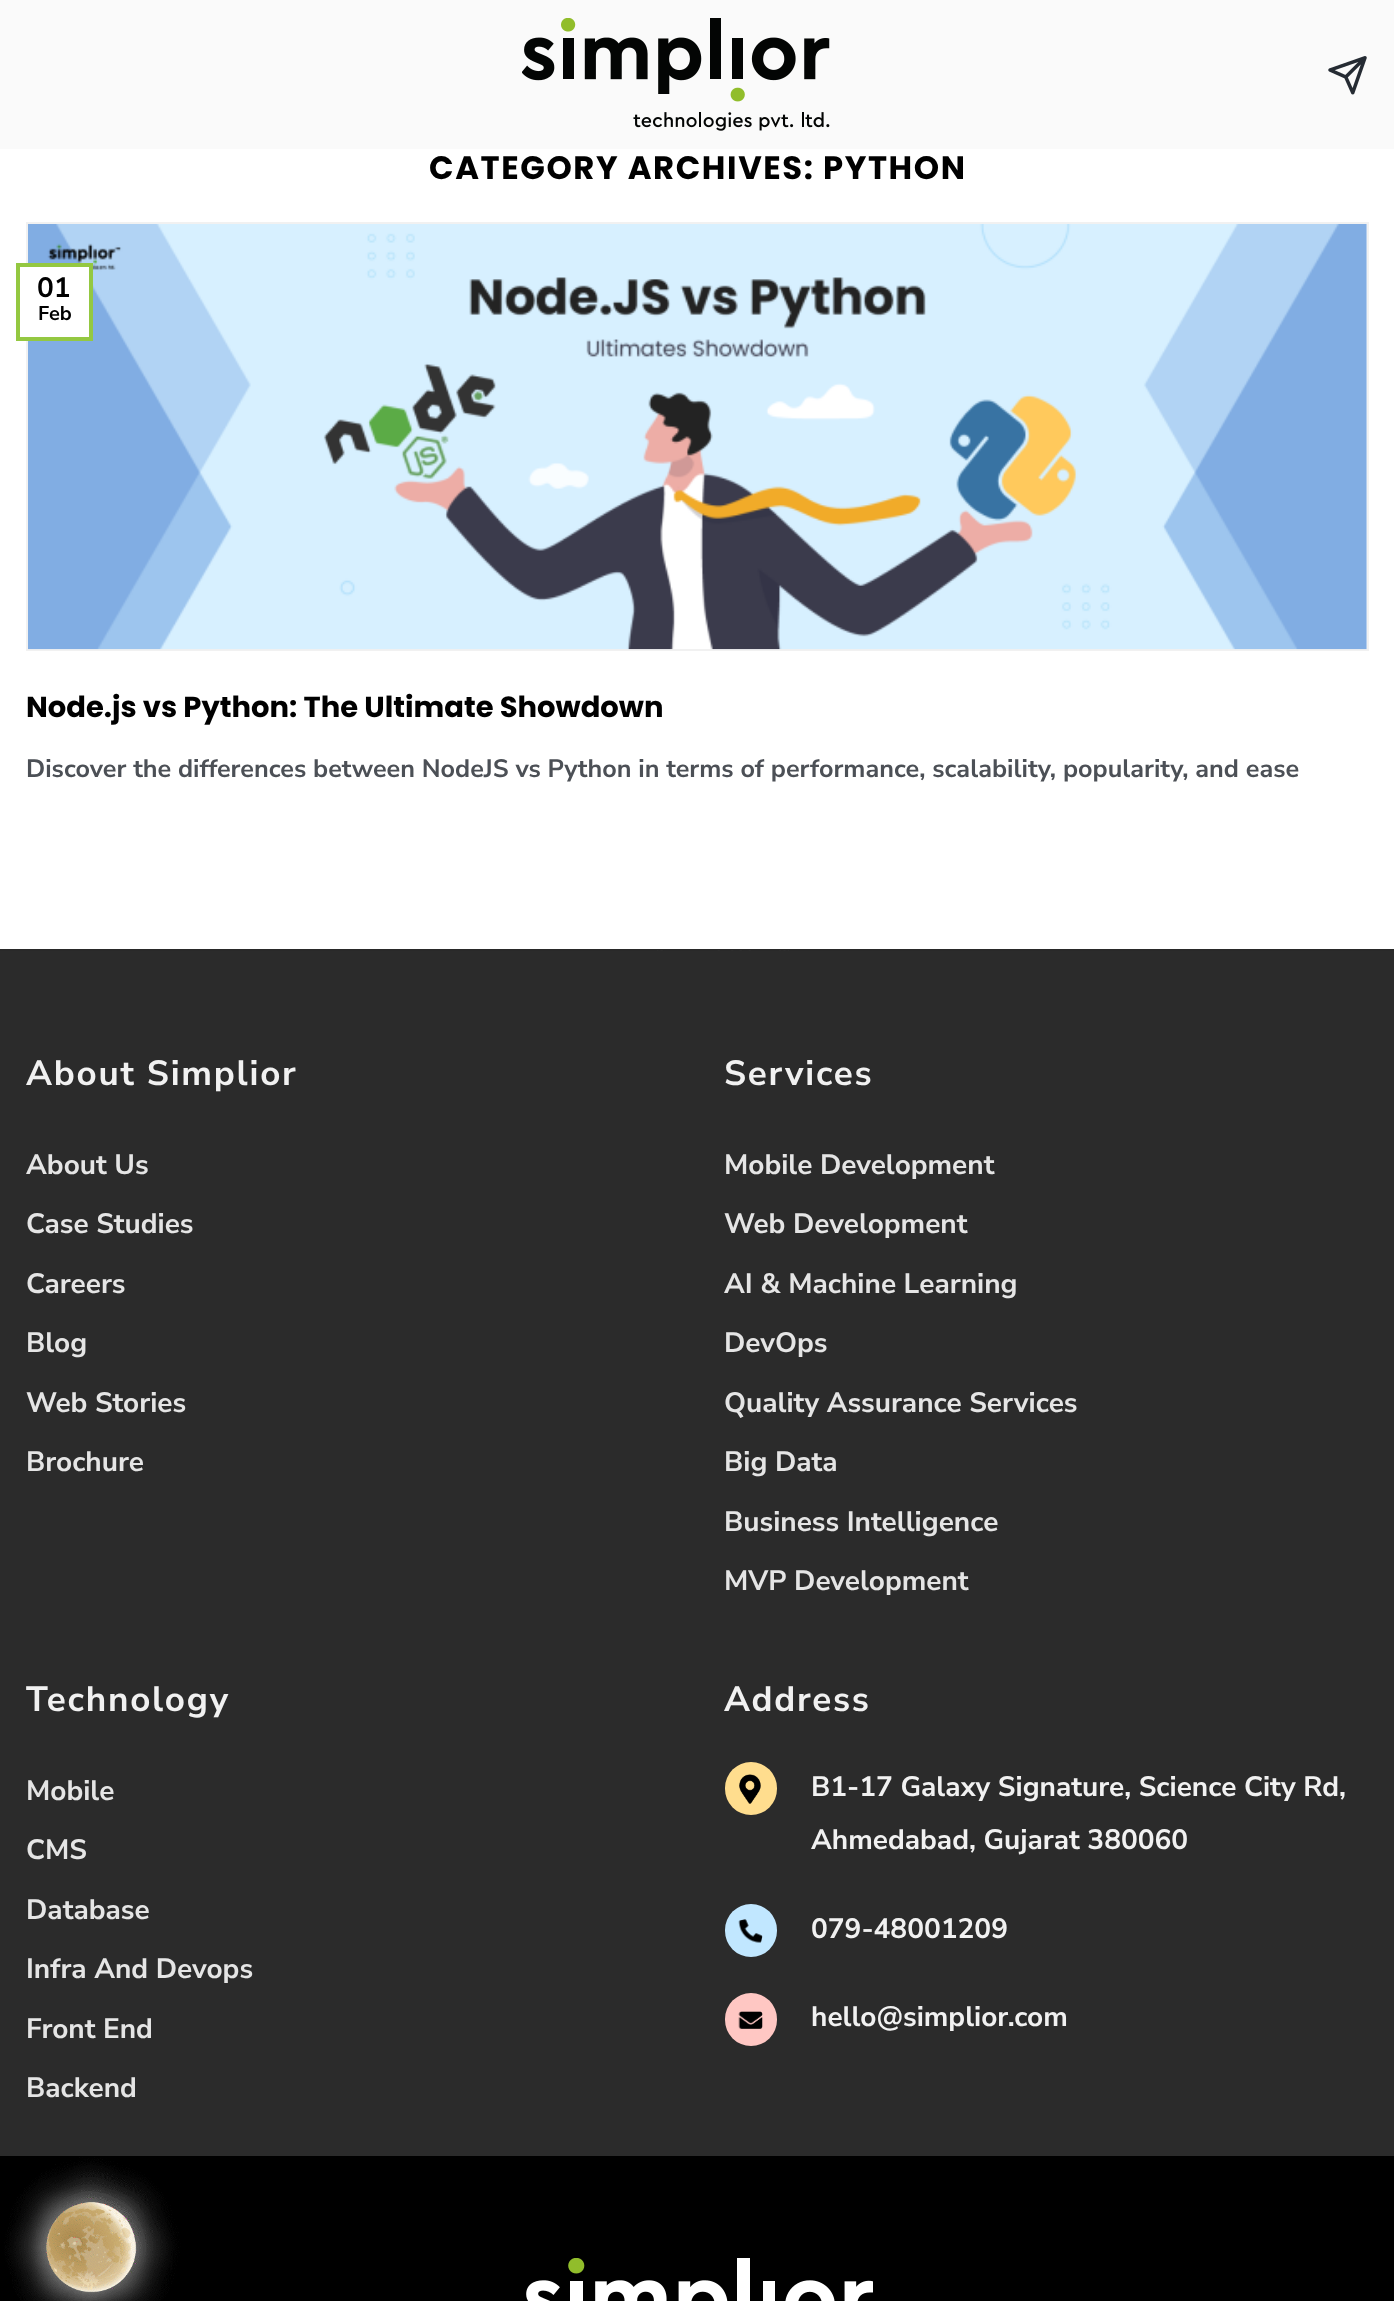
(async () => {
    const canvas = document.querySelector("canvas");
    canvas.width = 1394;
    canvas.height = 2301;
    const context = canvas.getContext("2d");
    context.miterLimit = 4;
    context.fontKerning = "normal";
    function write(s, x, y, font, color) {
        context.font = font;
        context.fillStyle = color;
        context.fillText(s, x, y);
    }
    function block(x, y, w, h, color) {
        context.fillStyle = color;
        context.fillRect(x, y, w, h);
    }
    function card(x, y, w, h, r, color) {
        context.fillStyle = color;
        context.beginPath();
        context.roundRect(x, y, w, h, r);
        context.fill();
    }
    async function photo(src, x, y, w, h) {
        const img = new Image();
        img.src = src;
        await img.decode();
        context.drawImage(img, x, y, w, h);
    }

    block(0, 0, 1394, 2301, "rgb(255, 255, 255)");
    block(0, 0, 1394, 149, "rgb(250, 250, 250)");
    await photo("media/1.png", 522, 18, 308, 113);
    await photo("media/2.png", 1328, 56, 39, 39);
    context.letterSpacing = "1.6px";
    write("CATEGORY ARCHIVES: PYTHON", 429, 179, "bold 32.25px Poppins", "rgb(0, 0, 0)");
    await photo("media/3.png", 1366, 224, 1, 425);
    context.strokeStyle = "rgb(241, 241, 241)";
    context.lineWidth = 2;
    context.strokeRect(27, 223, 1341, 427);
    await photo("media/4.png", 28, 224, 1339, 426);
    block(26, 267, 63, 70, "rgb(255, 255, 255)");
    context.strokeStyle = "rgb(148, 200, 65)";
    context.lineWidth = 4;
    context.strokeRect(18, 265, 73, 74);
    context.letterSpacing = "0px";
    write("01", 37, 297, "bold 28px Nunito Sans", "rgb(0, 0, 0)");
    write("Feb", 38, 320, "bold 20px Nunito Sans", "rgb(0, 0, 0)");
    write("Node.js vs Python: The Ultimate Showdown", 26, 717, "bold 29px Poppins", "rgb(0, 0, 0)");
    write("Discover the differences between NodeJS vs Python in terms of performance, scalability, popularity, and ease", 26, 777, "bold 25.2px Nunito Sans", "rgb(76, 80, 86)");
    await photo("media/5.png", 0, 2156, 1394, 145);
    block(0, 949, 1394, 2, "rgb(41, 41, 41)");
    await photo("media/6.png", 657, 950, 132, 1);
    block(0, 951, 1394, 1205, "rgb(43, 43, 43)");
    context.letterSpacing = "1.75px";
    write("About Simplior", 26, 1085, "bold 35px Nunito Sans", "rgb(241, 241, 241)");
    context.letterSpacing = "0px";
    write("About Us", 26, 1174, "bold 28px Nunito Sans", "rgb(229, 229, 229)");
    write("Case Studies", 26, 1233, "bold 28px Nunito Sans", "rgb(229, 229, 229)");
    write("Careers", 26, 1293, "bold 28px Nunito Sans", "rgb(229, 229, 229)");
    write("Blog", 26, 1352, "bold 28px Nunito Sans", "rgb(229, 229, 229)");
    write("Web Stories", 26, 1412, "bold 28px Nunito Sans", "rgb(229, 229, 229)");
    write("Brochure", 26, 1471, "bold 28px Nunito Sans", "rgb(229, 229, 229)");
    context.letterSpacing = "1.75px";
    write("Services", 724, 1085, "bold 35px Nunito Sans", "rgb(241, 241, 241)");
    context.letterSpacing = "0px";
    write("Mobile Development", 724, 1174, "bold 28px Nunito Sans", "rgb(229, 229, 229)");
    write("Web Development", 724, 1233, "bold 28px Nunito Sans", "rgb(229, 229, 229)");
    write("AI & Machine Learning", 724, 1293, "bold 28px Nunito Sans", "rgb(229, 229, 229)");
    write("DevOps", 724, 1352, "bold 28px Nunito Sans", "rgb(229, 229, 229)");
    write("Quality Assurance Services", 724, 1412, "bold 28px Nunito Sans", "rgb(229, 229, 229)");
    write("Big Data", 724, 1471, "bold 28px Nunito Sans", "rgb(229, 229, 229)");
    write("Business Intelligence", 724, 1531, "bold 28px Nunito Sans", "rgb(229, 229, 229)");
    write("MVP Development", 724, 1590, "bold 28px Nunito Sans", "rgb(229, 229, 229)");
    context.letterSpacing = "1.75px";
    write("Technology", 26, 1711, "bold 35px Nunito Sans", "rgb(241, 241, 241)");
    context.letterSpacing = "0px";
    write("Mobile", 26, 1800, "bold 28px Nunito Sans", "rgb(229, 229, 229)");
    write("CMS", 26, 1859, "bold 28px Nunito Sans", "rgb(229, 229, 229)");
    write("Database", 26, 1919, "bold 28px Nunito Sans", "rgb(229, 229, 229)");
    write("Infra And Devops", 26, 1978, "bold 28px Nunito Sans", "rgb(229, 229, 229)");
    write("Front End", 26, 2038, "bold 28px Nunito Sans", "rgb(229, 229, 229)");
    write("Backend", 26, 2097, "bold 28px Nunito Sans", "rgb(229, 229, 229)");
    context.letterSpacing = "1.75px";
    write("Address", 724, 1711, "bold 35px Nunito Sans", "rgb(241, 241, 241)");
    card(725, 1762, 52, 53, 26, "rgb(255, 221, 142)");
    await photo("media/7.png", 739, 1774, 22, 30);
    context.letterSpacing = "0px";
    write("B1-17 Galaxy Signature, Science City Rd,", 811, 1796, "bold 28px Nunito Sans", "rgb(241, 241, 241)");
    write("Ahmedabad, Gujarat 380060", 811, 1849, "bold 28px Nunito Sans", "rgb(241, 241, 241)");
    card(725, 1904, 52, 53, 26, "rgb(193, 231, 255)");
    await photo("media/8.png", 738, 1919, 25, 24);
    write("079-48001209", 811, 1938, "bold 28px Nunito Sans", "rgb(241, 241, 241)");
    card(725, 1993, 52, 53, 26, "rgb(255, 199, 195)");
    await photo("media/9.png", 738, 2011, 25, 18);
    write("hello@simplior.com", 811, 2026, "bold 28px Nunito Sans", "rgb(241, 241, 241)");
    await photo("media/10.png", 526, 2258, 347, 43);
})();
